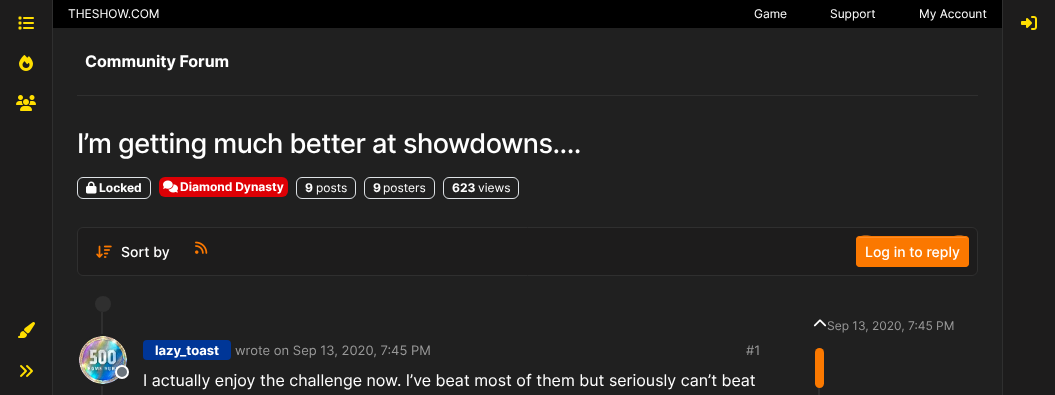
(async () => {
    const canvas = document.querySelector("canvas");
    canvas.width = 1055;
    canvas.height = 395;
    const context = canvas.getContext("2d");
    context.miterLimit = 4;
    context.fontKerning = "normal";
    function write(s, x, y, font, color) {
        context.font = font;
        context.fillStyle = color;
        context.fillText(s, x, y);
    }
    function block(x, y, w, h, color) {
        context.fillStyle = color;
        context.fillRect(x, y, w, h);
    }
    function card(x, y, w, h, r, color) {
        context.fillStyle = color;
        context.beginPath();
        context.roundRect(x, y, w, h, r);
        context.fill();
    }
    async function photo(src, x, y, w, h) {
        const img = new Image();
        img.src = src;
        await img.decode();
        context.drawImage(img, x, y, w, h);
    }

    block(0, 0, 1055, 395, "rgb(32, 32, 32)");
    block(0, 0, 52, 395, "rgb(29, 28, 28)");
    block(52, 0, 1, 395, "rgb(47, 47, 47)");
    await photo("media/1.png", 18, 16, 16, 14);
    await photo("media/2.png", 19, 55, 14, 16);
    await photo("media/3.png", 16, 95, 20, 16);
    await photo("media/4.png", 18, 322, 17, 16);
    await photo("media/5.png", 20, 365, 13, 12);
    block(53, 0, 949, 28, "rgb(0, 0, 0)");
    write("THESHOW.COM", 68, 18, "12px Inter", "rgb(255, 255, 255)");
    write("Game", 754, 18, "12px Inter", "rgb(255, 255, 255)");
    write("Support", 830, 18, "12px Inter", "rgb(255, 255, 255)");
    write("My Account", 919, 18, "12px Inter", "rgb(255, 255, 255)");
    block(77, 95, 901, 1, "rgb(47, 47, 47)");
    write("Community Forum", 85, 67, "bold 16px Inter", "rgb(255, 255, 255)");
    context.letterSpacing = "-0.55px";
    write("I’m getting much better at showdowns....", 77, 153, "500 27.1px Inter", "rgb(255, 255, 255)");
    context.beginPath();
    context.roundRect(77.5, 177.5, 73, 21, 5.5);
    context.strokeStyle = "rgb(222, 226, 230)";
    context.stroke();
    await photo("media/6.png", 86, 181, 11, 13);
    context.letterSpacing = "0px";
    write("Locked", 99, 192, "bold 12px Inter", "rgb(255, 255, 255)");
    card(159, 177, 129, 20, 6, "rgb(221, 0, 5)");
    await photo("media/7.png", 163, 180, 15, 13);
    write("Diamond Dynasty", 180, 191, "bold 12px Inter", "rgb(255, 255, 255)");
    context.beginPath();
    context.roundRect(296.5, 177.5, 59, 21, 5.5);
    context.stroke();
    write("9", 305, 192, "bold 12px Inter", "rgb(255, 255, 255)");
    write("posts", 316, 192, "12px Inter", "rgb(255, 255, 255)");
    context.beginPath();
    context.roundRect(364.5, 177.5, 70, 21, 5.5);
    context.stroke();
    write("9", 373, 192, "bold 12px Inter", "rgb(255, 255, 255)");
    write("posters", 383, 192, "12px Inter", "rgb(255, 255, 255)");
    context.beginPath();
    context.roundRect(443.5, 177.5, 75, 21, 5.5);
    context.stroke();
    write("623", 452, 192, "bold 12px Inter", "rgb(255, 255, 255)");
    write("views", 478, 192, "12px Inter", "rgb(255, 255, 255)");
    context.fillStyle = "rgb(29, 28, 28)";
    context.beginPath();
    context.roundRect(77.5, 227.5, 900, 48, 5.5);
    context.fill();
    context.strokeStyle = "rgb(47, 47, 47)";
    context.stroke();
    await photo("media/8.png", 96, 245, 16, 13);
    write("Sort by", 121, 257, "500 14px Inter", "rgb(255, 255, 255)");
    await photo("media/9.png", 195, 241, 13, 13);
    card(856, 236, 113, 31, 4, "rgb(251, 120, 0)");
    context.fillStyle = "rgb(252, 140, 38)";
    context.beginPath();
    context.moveTo(860, 238);
    context.lineTo(965, 238);
    context.bezierCurveTo(967, 238, 968, 239, 968, 241);
    context.bezierCurveTo(968, 232, 950, 237, 948, 237);
    context.lineTo(878, 237);
    context.bezierCurveTo(875, 237, 857, 232, 857, 241);
    context.bezierCurveTo(857, 239, 858, 238, 860, 238);
    context.closePath();
    context.fill();
    context.beginPath();
    context.roundRect(856.5, 236.5, 112, 30, 3.5);
    context.strokeStyle = "rgb(251, 120, 0)";
    context.stroke();
    write("Log in to reply", 865, 257, "500 14px Inter", "rgb(255, 255, 255)");
    await photo("media/10.png", 813, 319, 14, 8);
    write("Sep 13, 2020, 7:45 PM", 827, 330, "12px Inter", "rgb(153, 153, 153)");
    block(818, 348, 2, 47, "rgb(47, 47, 47)");
    card(815, 348, 9, 40, 4.5, "rgb(251, 121, 0)");
    block(101, 312, 2, 83, "rgb(47, 47, 47)");
    context.beginPath();
    context.arc(103, 304, 8, 0, Math.PI * 2);
    context.fill();
    context.fillStyle = "rgb(32, 32, 32)";
    context.beginPath();
    context.arc(103, 360, 25, 0, Math.PI * 2);
    context.fill();
    context.strokeStyle = "rgb(32, 32, 32)";
    context.lineWidth = 2;
    context.stroke();
    await photo("media/11.png", 79, 336, 48, 48);
    context.fillStyle = "rgb(108, 117, 125)";
    context.beginPath();
    context.arc(122, 372, 6, 0, Math.PI * 2);
    context.fill();
    context.strokeStyle = "rgb(255, 255, 255)";
    context.stroke();
    card(143, 340, 88, 20, 4, "rgb(0, 54, 151)");
    write("lazy_toast", 155, 355, "bold 13px Inter", "rgb(255, 255, 255)");
    write("wrote on Sep 13, 2020, 7:45 PM", 235, 355, "13px Inter", "rgb(153, 153, 153)");
    write("#1", 746, 355, "13px Inter", "rgb(153, 153, 153)");
    write("I actually enjoy the challenge now. I’ve beat most of them but seriously can’t beat", 143, 386, "16px Inter", "rgb(255, 255, 255)");
    block(1003, 0, 52, 395, "rgb(29, 28, 28)");
    block(1002, 0, 1, 395, "rgb(47, 47, 47)");
    await photo("media/12.png", 1021, 16, 16, 14);
})();
